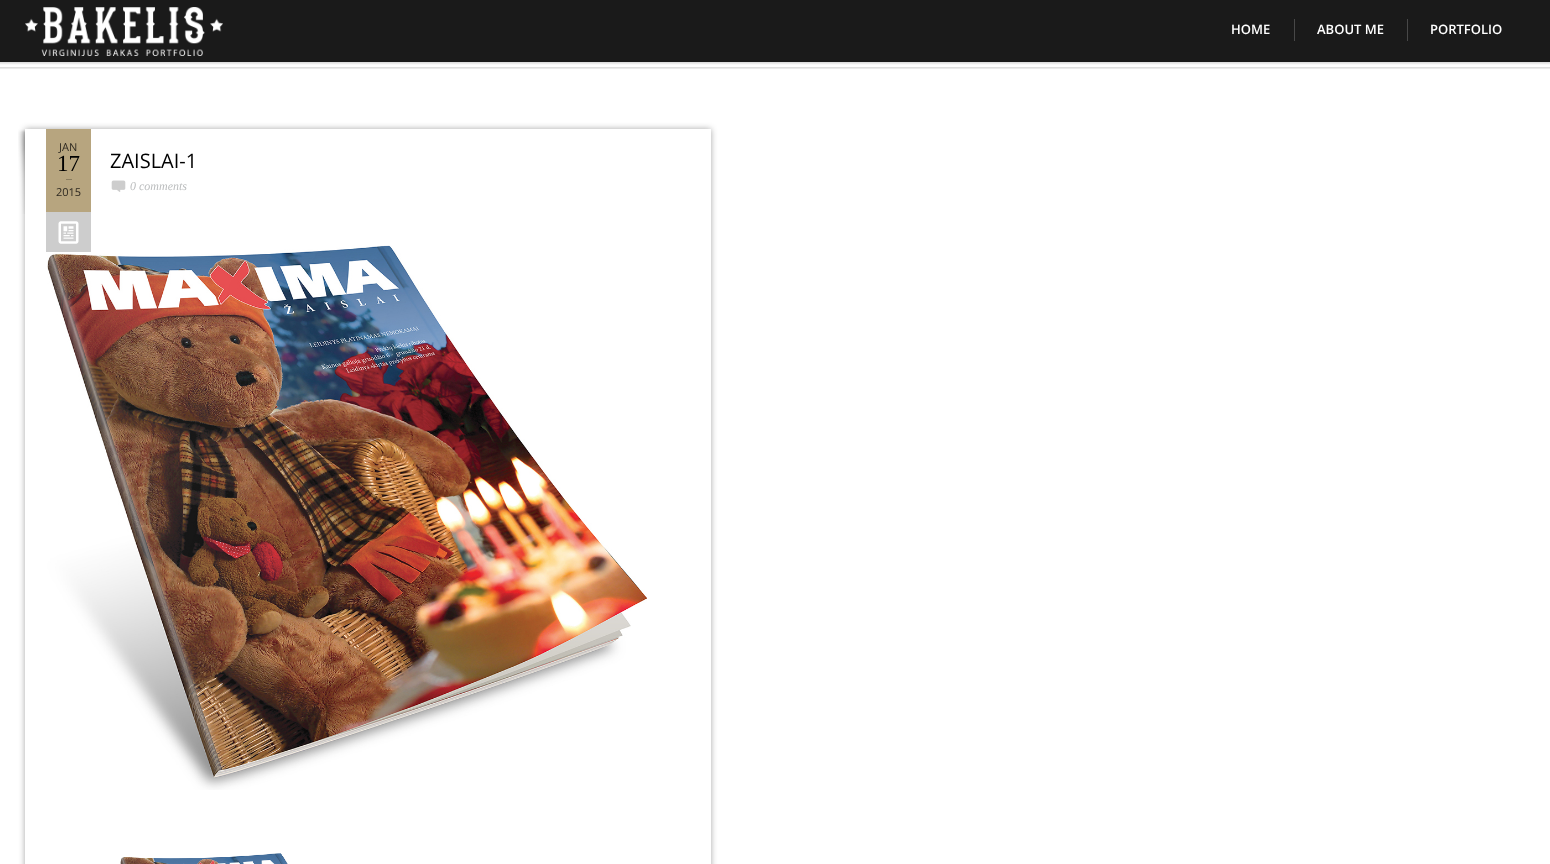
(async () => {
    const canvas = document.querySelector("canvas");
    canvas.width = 1550;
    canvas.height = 864;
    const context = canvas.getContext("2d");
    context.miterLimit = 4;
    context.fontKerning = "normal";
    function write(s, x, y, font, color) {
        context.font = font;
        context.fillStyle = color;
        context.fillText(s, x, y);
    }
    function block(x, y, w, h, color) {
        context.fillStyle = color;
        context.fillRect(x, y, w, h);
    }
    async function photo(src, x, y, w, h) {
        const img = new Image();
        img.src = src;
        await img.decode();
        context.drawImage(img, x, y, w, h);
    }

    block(0, 0, 1550, 864, "rgb(255, 255, 255)");
    block(0, 0, 1550, 62, "rgb(26, 26, 26)");
    await photo("media/1.png", 25, 7, 198, 49);
    write("HOME", 1231, 34, "600 13px Open Sans", "rgb(255, 255, 255)");
    block(1294, 19, 1, 22, "rgb(72, 72, 72)");
    write("ABOUT ME", 1317, 34, "600 13px Open Sans", "rgb(255, 255, 255)");
    block(1407, 19, 1, 22, "rgb(72, 72, 72)");
    write("PORTFOLIO", 1430, 34, "600 13px Open Sans", "rgb(255, 255, 255)");
    await photo("media/2.png", 0, 62, 1550, 7);
    await photo("media/6.png", 47, 245, 600, 545);
    await photo("media/7.png", 120, 853, 168, 11);
    context.save();
    context.beginPath();
    context.moveTo(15, 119);
    context.lineTo(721, 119);
    context.lineTo(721, 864);
    context.lineTo(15, 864);
    context.closePath();
    context.moveTo(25, 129);
    context.lineTo(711, 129);
    context.lineTo(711, 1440);
    context.lineTo(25, 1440);
    context.closePath();
    context.clip("evenodd");
    context.fillStyle = "rgba(0, 0, 0, 0.35)";
    context.filter = "blur(3px)";
    context.beginPath();
    context.rect(25, 129, 686, 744);
    context.fill();
    context.filter = "none";
    context.restore();
    await photo("media/3.png", 18, 129, 7, 85);
    block(46, 129, 45, 83, "rgb(183, 165, 127)");
    write("JAN", 59, 151, "11px Open Sans", "rgb(46, 41, 32)");
    write("17", 57, 171, "23px Liberation Serif", "rgb(0, 0, 0)");
    block(66, 179, 6, 1, "rgb(137, 124, 95)");
    write("2015", 56, 196, "11px Open Sans", "rgb(46, 41, 32)");
    block(46, 212, 45, 40, "rgb(205, 205, 205)");
    await photo("media/4.png", 58, 221, 21, 23);
    write("ZAISLAI-1", 110, 168, "20px Open Sans", "rgb(0, 0, 0)");
    await photo("media/5.png", 111, 180, 15, 12);
    write("0 comments", 130, 190, "italic 12px Liberation Serif", "rgb(187, 189, 190)");
})();
